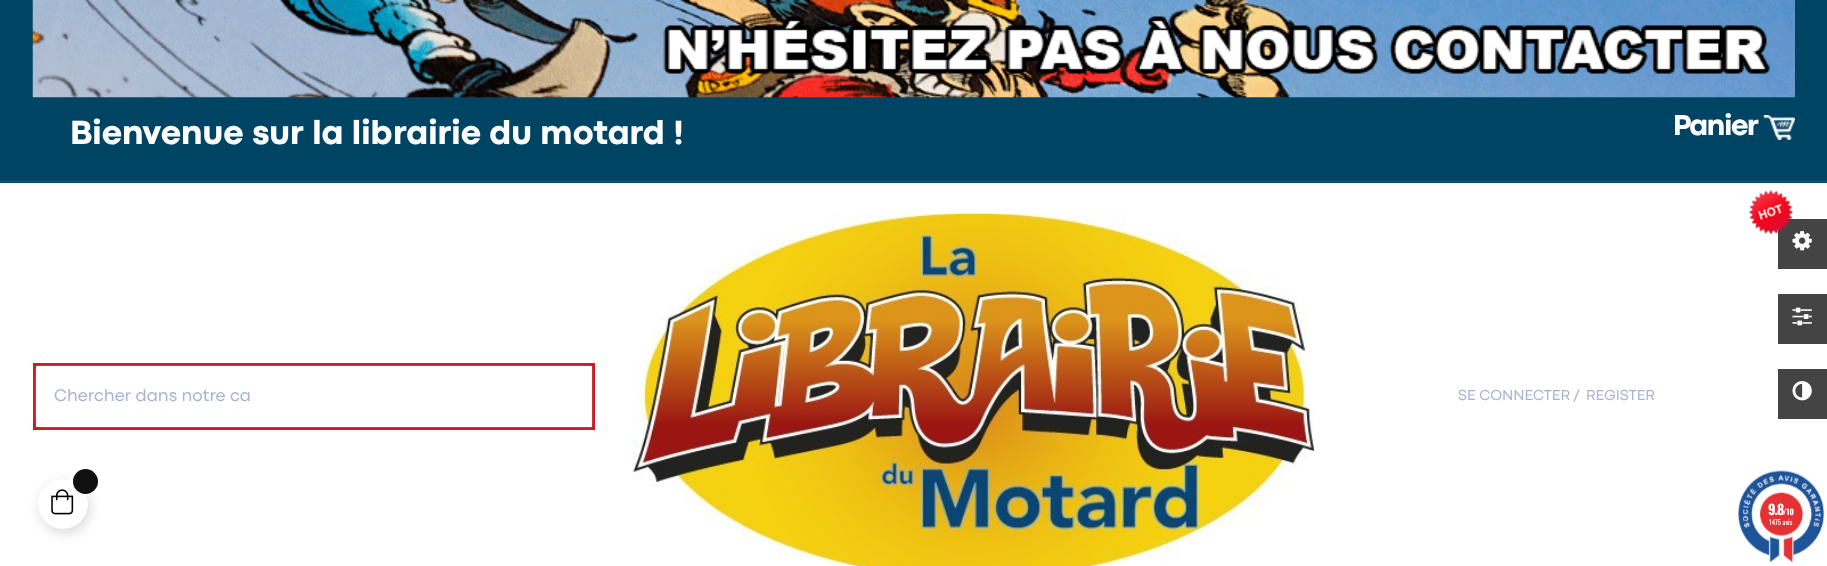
(async () => {
    const canvas = document.querySelector("canvas");
    canvas.width = 1827;
    canvas.height = 566;
    const context = canvas.getContext("2d");
    context.miterLimit = 4;
    context.fontKerning = "normal";
    function write(s, x, y, font, color) {
        context.font = font;
        context.fillStyle = color;
        context.fillText(s, x, y);
    }
    function block(x, y, w, h, color) {
        context.fillStyle = color;
        context.fillRect(x, y, w, h);
    }
    function card(x, y, w, h, r, color) {
        context.fillStyle = color;
        context.beginPath();
        context.roundRect(x, y, w, h, r);
        context.fill();
    }
    async function photo(src, x, y, w, h) {
        const img = new Image();
        img.src = src;
        await img.decode();
        context.drawImage(img, x, y, w, h);
    }

    block(0, 0, 1827, 566, "rgb(255, 255, 255)");
    block(0, 0, 1827, 183, "rgb(0, 68, 99)");
    await photo("media/1.png", 32, 0, 1763, 98);
    write("Bienvenue sur la librairie du motard !", 70, 144, "800 35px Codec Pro", "rgb(255, 255, 255)");
    context.letterSpacing = "-1.25px";
    write("Panier", 1673, 135, "800 30px Codec Pro", "rgb(255, 255, 255)");
    await photo("media/2.png", 1763, 115, 32, 25);
    block(0, 181, 1827, 1, "rgb(26, 87, 115)");
    context.strokeStyle = "rgb(203, 30, 37)";
    context.lineWidth = 3;
    context.strokeRect(34.5, 364.5, 559, 64);
    card(35, 365, 558, 63, 5, "rgba(255, 255, 255, 0.1)");
    context.letterSpacing = "0px";
    write("Chercher dans notre ca", 54, 401, "17.5px Codec Pro", "rgb(168, 179, 211)");
    await photo("media/3.png", 632, 213, 683, 353);
    write("SE CONNECTER /", 1458, 400, "15px Codec Pro", "rgb(168, 179, 211)");
    write("REGISTER", 1586, 400, "15px Codec Pro", "rgb(168, 179, 211)");
    block(1778, 219, 49, 50, "rgb(68, 68, 68)");
    await photo("media/5.png", 1792, 231, 20, 20);
    await photo("media/4.png", 1749, 190, 45, 45);
    block(1778, 294, 49, 50, "rgb(68, 68, 68)");
    await photo("media/6.png", 1792, 307, 20, 19);
    block(1778, 369, 49, 50, "rgb(68, 68, 68)");
    await photo("media/7.png", 1792, 381, 20, 20);
    context.fillStyle = "rgba(0, 0, 0, 0.15)";
    context.filter = "blur(6px)";
    context.beginPath();
    context.roundRect(40, 483, 50, 50, 25);
    context.fill();
    context.filter = "none";
    context.fillStyle = "rgb(255, 255, 255)";
    context.beginPath();
    context.arc(63, 504, 25, 0, Math.PI * 2);
    context.fill();
    await photo("media/8.png", 51, 489, 23, 26);
    context.beginPath();
    context.arc(85, 481, 13.5, 0, Math.PI * 2);
    context.strokeStyle = "rgb(255, 255, 255)";
    context.stroke();
    context.fillStyle = "rgb(17, 17, 17)";
    context.beginPath();
    context.arc(85.5, 481.5, 12.5, 0, Math.PI * 2);
    context.fill();
    await photo("media/9.png", 1738, 470, 87, 93);
    context.letterSpacing = "-1px";
    write("9.8", 1768, 515, "bold 14px Oswald", "rgb(255, 255, 255)");
    context.letterSpacing = "0px";
    write("/10", 1783, 515, "bold 8px Oswald", "rgb(255, 255, 255)");
    write("1475 avis", 1769, 525, "7px Oswald", "rgb(255, 255, 255)");
})();
